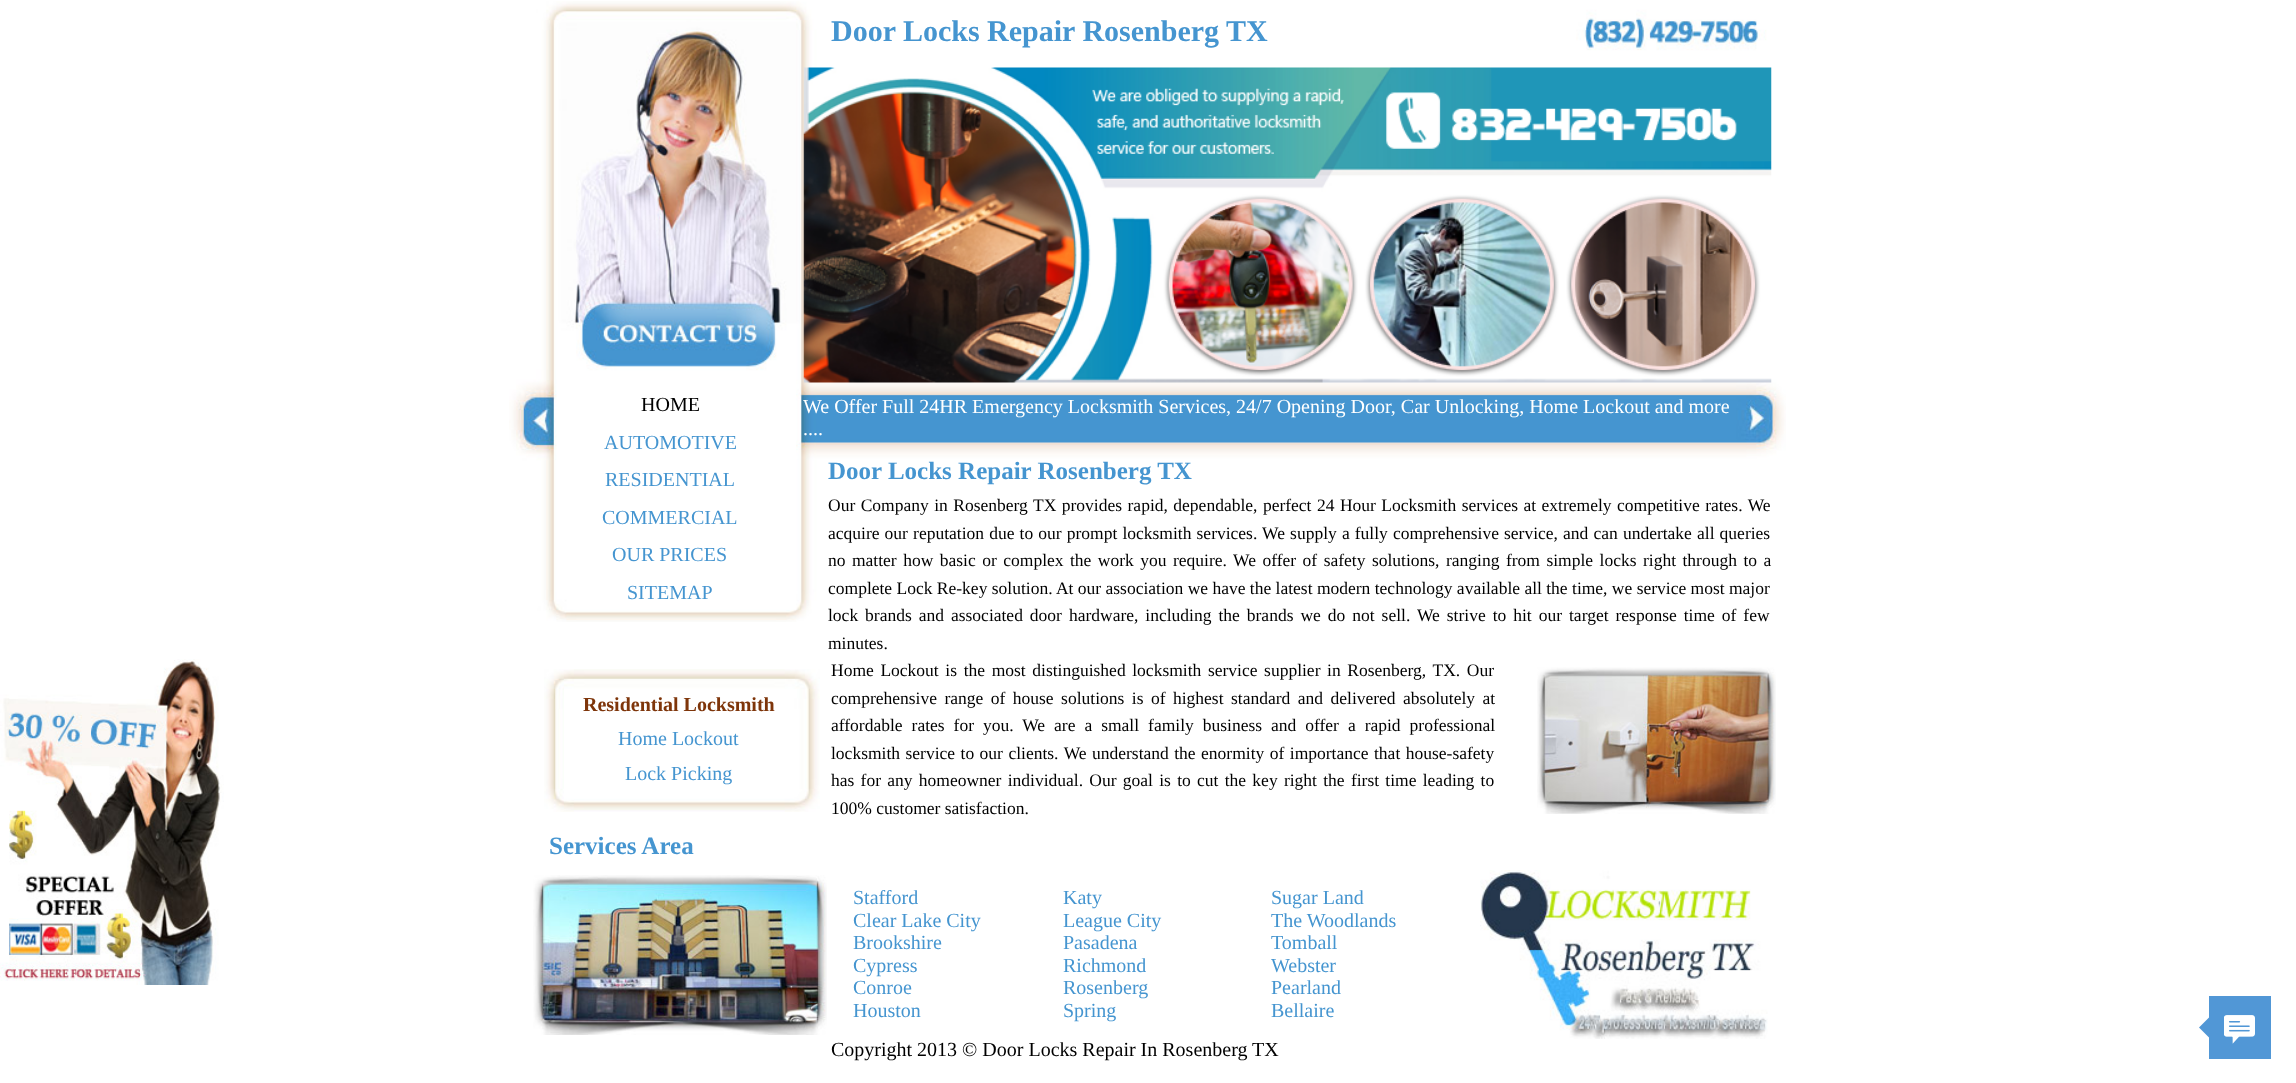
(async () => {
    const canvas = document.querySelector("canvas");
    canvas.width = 2296;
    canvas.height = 1083;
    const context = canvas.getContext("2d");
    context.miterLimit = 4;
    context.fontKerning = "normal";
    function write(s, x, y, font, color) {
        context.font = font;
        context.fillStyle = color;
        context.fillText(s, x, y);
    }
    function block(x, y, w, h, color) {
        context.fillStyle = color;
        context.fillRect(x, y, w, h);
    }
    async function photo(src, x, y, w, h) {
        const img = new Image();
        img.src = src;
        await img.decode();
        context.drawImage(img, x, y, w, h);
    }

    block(0, 0, 2296, 1083, "rgb(255, 255, 255)");
    await photo("media/1.png", 509, 1, 1277, 621);
    write("Door Locks Repair Rosenberg TX", 831, 41, "bold 30px Liberation Serif", "rgb(69, 149, 208)");
    await photo("media/2.png", 803, 67, 969, 316);
    write("HOME", 641, 411, "20px Liberation Serif", "rgb(0, 0, 0)");
    write("AUTOMOTIVE", 604, 449, "20px Liberation Serif", "rgb(69, 149, 208)");
    write("RESIDENTIAL", 605, 486, "20px Liberation Serif", "rgb(69, 149, 208)");
    write("COMMERCIAL", 602, 524, "20px Liberation Serif", "rgb(69, 149, 208)");
    write("OUR PRICES", 612, 561, "20px Liberation Serif", "rgb(69, 149, 208)");
    write("SITEMAP", 627, 599, "20px Liberation Serif", "rgb(69, 149, 208)");
    write("We Offer Full 24HR Emergency Locksmith Services, 24/7 Opening Door, Car Unlocking, Home Lockout and more", 803, 413, "20px Liberation Serif", "rgb(255, 255, 255)");
    write("....", 803, 435, "20px Liberation Serif", "rgb(255, 255, 255)");
    write("Door Locks Repair Rosenberg TX", 828, 479, "bold 25px Liberation Serif", "rgb(69, 149, 208)");
    context.wordSpacing = "1.1px";
    write("Our Company in Rosenberg TX provides rapid, dependable, perfect 24 Hour Locksmith services at extremely competitive rates. We", 828, 511, "17.5px Liberation Serif", "rgb(0, 0, 0)");
    context.wordSpacing = "0.75px";
    write("acquire our reputation due to our prompt locksmith services. We supply a fully comprehensive service, and can undertake all queries", 828, 539, "17.5px Liberation Serif", "rgb(0, 0, 0)");
    context.wordSpacing = "2.1px";
    write("no matter how basic or complex the work you require. We offer of safety solutions, ranging from simple locks right through to a", 828, 566, "17.5px Liberation Serif", "rgb(0, 0, 0)");
    context.wordSpacing = "0px";
    write("complete Lock Re-key solution. At our association we have the latest modern technology available all the time, we service most major", 828, 594, "17.5px Liberation Serif", "rgb(0, 0, 0)");
    context.wordSpacing = "2.6px";
    write("lock brands and associated door hardware, including the brands we do not sell. We strive to hit our target response time of few", 828, 621, "17.5px Liberation Serif", "rgb(0, 0, 0)");
    context.wordSpacing = "0px";
    write("minutes.", 828, 649, "17.5px Liberation Serif", "rgb(0, 0, 0)");
    await photo("media/3.png", 544, 669, 276, 143);
    write("Residential Locksmith", 583, 711, "bold 20px Liberation Serif", "rgb(126, 53, 10)");
    write("Home Lockout", 618, 745, "20px Liberation Serif", "rgb(69, 149, 208)");
    write("Lock Picking", 625, 780, "20px Liberation Serif", "rgb(69, 149, 208)");
    context.wordSpacing = "2.25px";
    write("Home Lockout is the most distinguished locksmith service supplier in Rosenberg, TX. Our", 831, 676, "17.5px Liberation Serif", "rgb(0, 0, 0)");
    context.wordSpacing = "3.1px";
    write("comprehensive range of house solutions is of highest standard and delivered absolutely at", 831, 704, "17.5px Liberation Serif", "rgb(0, 0, 0)");
    context.wordSpacing = "4.6px";
    write("affordable rates for you. We are a small family business and offer a rapid professional", 831, 731, "17.5px Liberation Serif", "rgb(0, 0, 0)");
    context.wordSpacing = "1.1px";
    write("locksmith service to our clients. We understand the enormity of importance that house-safety", 831, 759, "17.5px Liberation Serif", "rgb(0, 0, 0)");
    context.wordSpacing = "1.9px";
    write("has for any homeowner individual. Our goal is to cut the key right the first time leading to", 831, 786, "17.5px Liberation Serif", "rgb(0, 0, 0)");
    context.wordSpacing = "0px";
    write("100% customer satisfaction.", 831, 814, "17.5px Liberation Serif", "rgb(0, 0, 0)");
    await photo("media/4.png", 1537, 667, 239, 147);
    write("Services Area", 549, 854, "bold 25px Liberation Serif", "rgb(69, 149, 208)");
    await photo("media/5.png", 533, 875, 294, 160);
    write("Stafford", 853, 904, "20px Liberation Serif", "rgb(69, 149, 208)");
    write("Clear Lake City", 853, 927, "20px Liberation Serif", "rgb(69, 149, 208)");
    write("Brookshire", 853, 949, "20px Liberation Serif", "rgb(69, 149, 208)");
    write("Cypress", 853, 972, "20px Liberation Serif", "rgb(69, 149, 208)");
    write("Conroe", 853, 994, "20px Liberation Serif", "rgb(69, 149, 208)");
    write("Houston", 853, 1017, "20px Liberation Serif", "rgb(69, 149, 208)");
    write("Katy", 1063, 904, "20px Liberation Serif", "rgb(69, 149, 208)");
    write("League City", 1063, 927, "20px Liberation Serif", "rgb(69, 149, 208)");
    write("Pasadena", 1063, 949, "20px Liberation Serif", "rgb(69, 149, 208)");
    write("Richmond", 1063, 972, "20px Liberation Serif", "rgb(69, 149, 208)");
    write("Rosenberg", 1063, 994, "20px Liberation Serif", "rgb(69, 149, 208)");
    write("Spring", 1063, 1017, "20px Liberation Serif", "rgb(69, 149, 208)");
    write("Sugar Land", 1271, 904, "20px Liberation Serif", "rgb(69, 149, 208)");
    write("The Woodlands", 1271, 927, "20px Liberation Serif", "rgb(69, 149, 208)");
    write("Tomball", 1271, 949, "20px Liberation Serif", "rgb(69, 149, 208)");
    write("Webster", 1271, 972, "20px Liberation Serif", "rgb(69, 149, 208)");
    write("Pearland", 1271, 994, "20px Liberation Serif", "rgb(69, 149, 208)");
    write("Bellaire", 1271, 1017, "20px Liberation Serif", "rgb(69, 149, 208)");
    await photo("media/6.png", 1480, 870, 288, 169);
    await photo("media/7.png", 0, 659, 224, 326);
    write("Copyright 2013 © Door Locks Repair In Rosenberg TX", 831, 1056, "20px Liberation Serif", "rgb(0, 0, 0)");
    block(2209, 996, 62, 63, "rgb(81, 151, 214)");
    context.beginPath();
    context.moveTo(2209, 1017.5);
    context.lineTo(2209, 1037.5);
    context.lineTo(2199, 1027.5);
    context.closePath();
    context.fill();
    await photo("media/8.png", 2224, 1015, 31, 29);
})();
